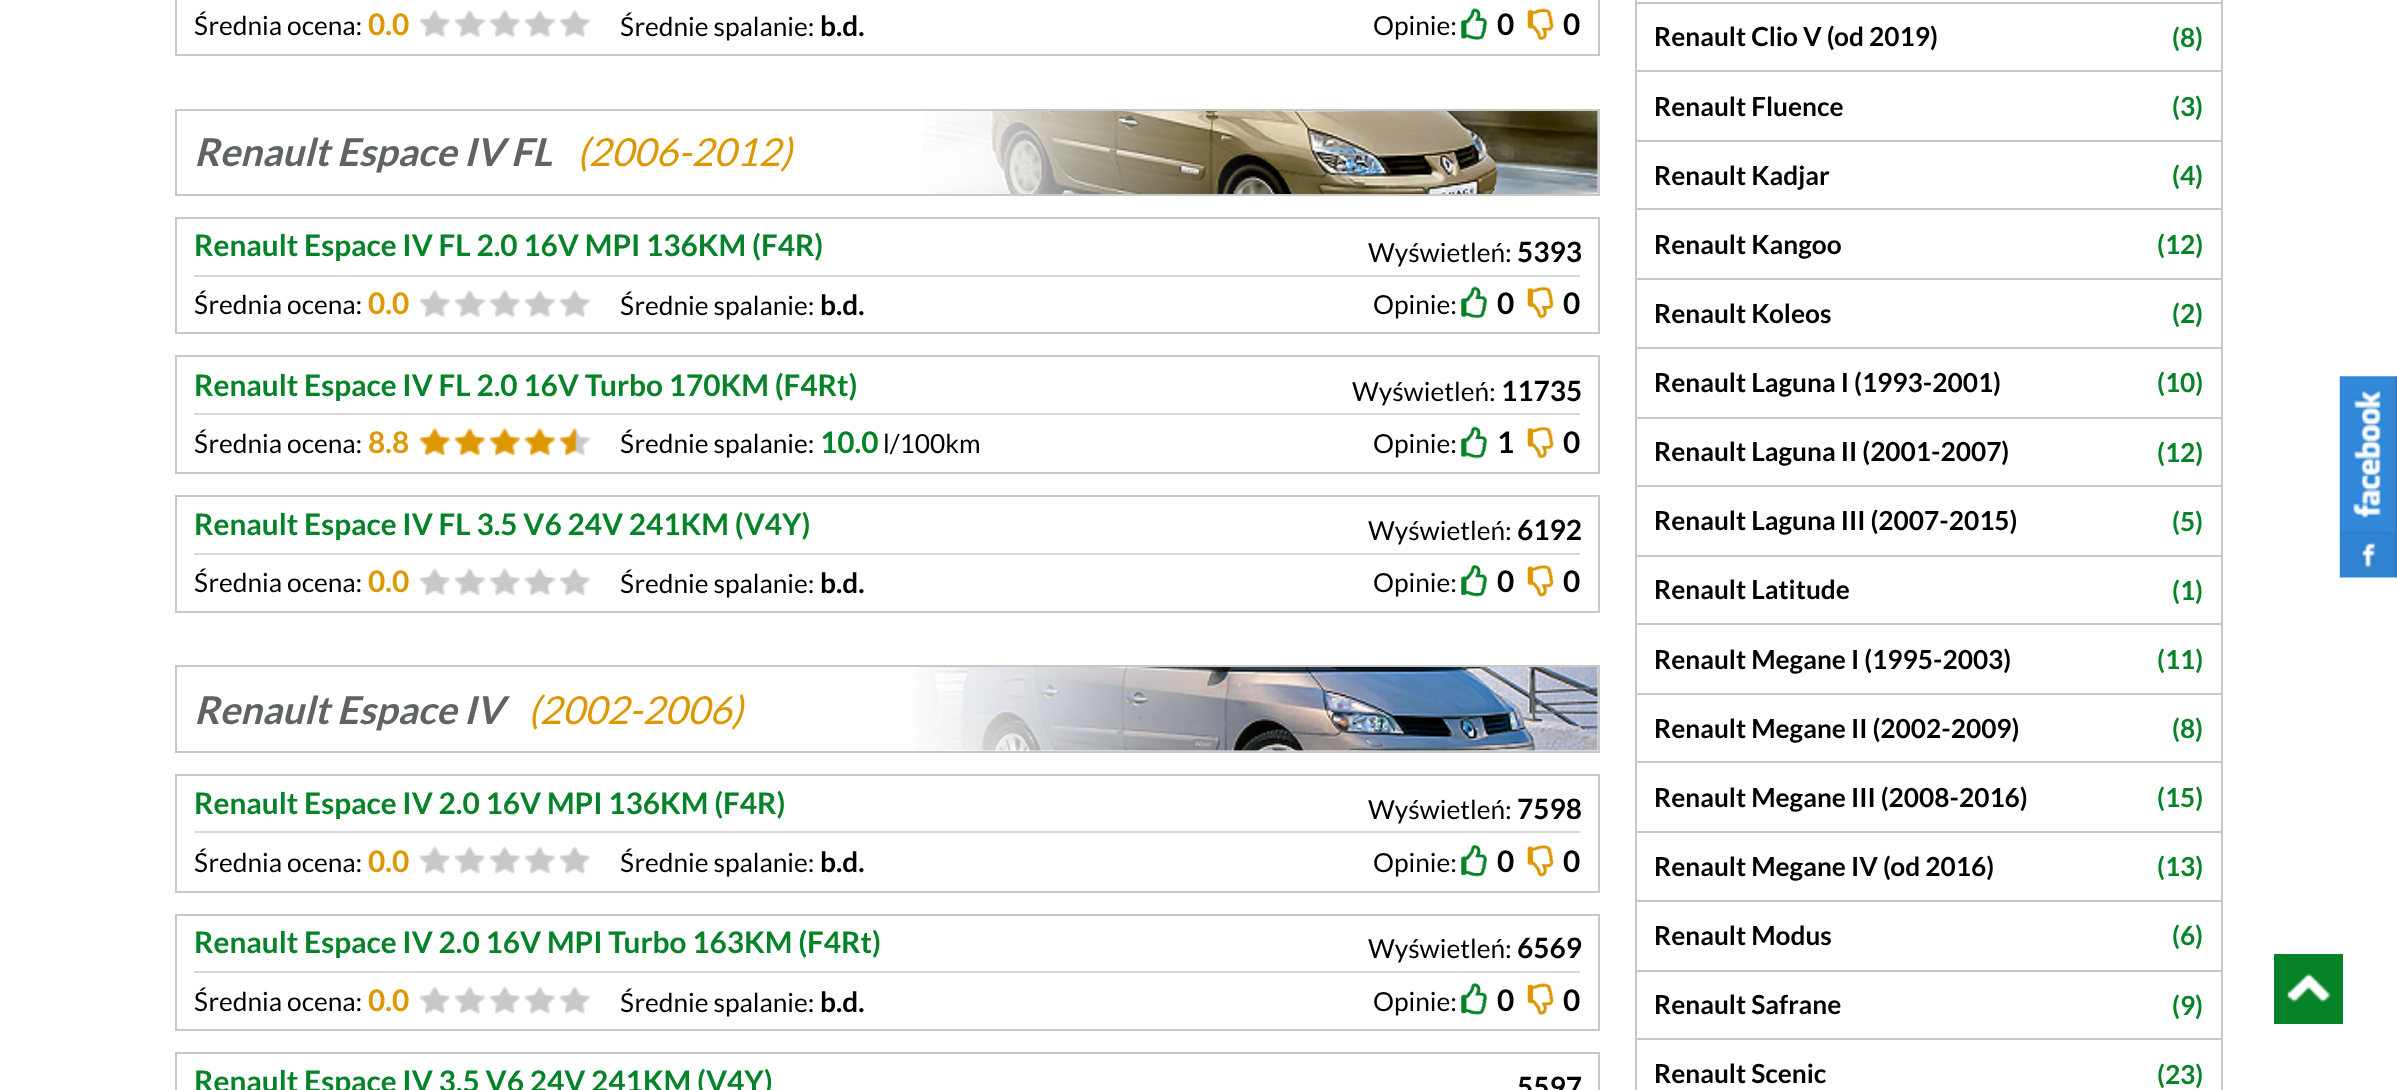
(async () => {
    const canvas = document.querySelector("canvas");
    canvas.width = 2397;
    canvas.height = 1090;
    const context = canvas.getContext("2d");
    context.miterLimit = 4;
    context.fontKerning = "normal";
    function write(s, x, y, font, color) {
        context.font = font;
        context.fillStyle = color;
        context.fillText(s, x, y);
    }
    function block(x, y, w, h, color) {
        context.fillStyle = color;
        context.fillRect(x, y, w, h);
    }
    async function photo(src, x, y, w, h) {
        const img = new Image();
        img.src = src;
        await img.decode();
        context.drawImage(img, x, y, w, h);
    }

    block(0, 0, 2397, 1090, "rgb(255, 255, 255)");
    context.strokeStyle = "rgb(200, 200, 200)";
    context.lineWidth = 2;
    context.strokeRect(176, -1, 1423, 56);
    write("Średnia ocena:", 194, 35, "26.25px Lato", "rgb(0, 0, 0)");
    write("0.0", 368, 35, "bold 29.75px Lato", "rgb(221, 151, 1)");
    await photo("media/1.png", 419, 10, 172, 27);
    write("Średnie spalanie:", 620, 36, "26.25px Lato", "rgb(0, 0, 0)");
    write("b.d.", 820, 36, "bold 28px Lato", "rgb(0, 0, 0)");
    write("Opinie:", 1373, 35, "26.25px Lato", "rgb(0, 0, 0)");
    await photo("media/2.png", 1461, 8, 27, 32);
    write("0", 1497, 35, "bold 29.75px Lato", "rgb(0, 0, 0)");
    await photo("media/3.png", 1527, 8, 27, 32);
    write("0", 1563, 35, "bold 29.75px Lato", "rgb(0, 0, 0)");
    await photo("media/4.png", 922, 111, 676, 83);
    context.strokeRect(176, 110, 1423, 85);
    write("Renault Espace IV FL", 194, 166, "italic bold 38.5px Lato", "rgb(95, 99, 100)");
    write("(2006-2012)", 577, 166, "italic 38.5px Lato", "rgb(221, 151, 1)");
    context.strokeRect(176, 218, 1423, 115);
    block(194, 275, 1386, 2, "rgb(216, 216, 216)");
    write("Renault Espace IV FL 2.0 16V MPI 136KM (F4R)", 194, 256, "bold 29.75px Lato", "rgb(6, 131, 41)");
    write("Wyświetleń:", 1368, 262, "26.25px Lato", "rgb(0, 0, 0)");
    write("5393", 1517, 262, "bold 28px Lato", "rgb(0, 0, 0)");
    write("Średnia ocena:", 194, 314, "26.25px Lato", "rgb(0, 0, 0)");
    write("0.0", 368, 314, "bold 29.75px Lato", "rgb(221, 151, 1)");
    await photo("media/5.png", 419, 290, 172, 27);
    write("Średnie spalanie:", 620, 315, "26.25px Lato", "rgb(0, 0, 0)");
    write("b.d.", 820, 315, "bold 28px Lato", "rgb(0, 0, 0)");
    write("Opinie:", 1373, 314, "26.25px Lato", "rgb(0, 0, 0)");
    await photo("media/6.png", 1461, 286, 27, 33);
    write("0", 1497, 314, "bold 29.75px Lato", "rgb(0, 0, 0)");
    await photo("media/7.png", 1527, 286, 27, 33);
    write("0", 1563, 314, "bold 29.75px Lato", "rgb(0, 0, 0)");
    context.strokeRect(176, 356, 1423, 117);
    block(194, 413, 1386, 2, "rgb(216, 216, 216)");
    write("Renault Espace IV FL 2.0 16V Turbo 170KM (F4Rt)", 194, 396, "bold 29.75px Lato", "rgb(6, 131, 41)");
    write("Wyświetleń:", 1352, 401, "26.25px Lato", "rgb(0, 0, 0)");
    write("11735", 1501, 401, "bold 28px Lato", "rgb(0, 0, 0)");
    write("Średnia ocena:", 194, 453, "26.25px Lato", "rgb(0, 0, 0)");
    write("8.8", 368, 453, "bold 29.75px Lato", "rgb(221, 151, 1)");
    await photo("media/8.png", 419, 428, 172, 28);
    write("Średnie spalanie:", 620, 453, "26.25px Lato", "rgb(0, 0, 0)");
    write("10.0", 820, 453, "bold 29.75px Lato", "rgb(6, 131, 41)");
    write("l/100km", 883, 453, "26.25px Lato", "rgb(0, 0, 0)");
    write("Opinie:", 1373, 453, "26.25px Lato", "rgb(0, 0, 0)");
    await photo("media/9.png", 1461, 426, 27, 33);
    write("1", 1497, 453, "bold 29.75px Lato", "rgb(0, 0, 0)");
    await photo("media/10.png", 1527, 426, 27, 33);
    write("0", 1563, 453, "bold 29.75px Lato", "rgb(0, 0, 0)");
    context.strokeRect(176, 496, 1423, 116);
    block(194, 553, 1386, 2, "rgb(216, 216, 216)");
    write("Renault Espace IV FL 3.5 V6 24V 241KM (V4Y)", 194, 535, "bold 29.75px Lato", "rgb(6, 131, 41)");
    write("Wyświetleń:", 1368, 540, "26.25px Lato", "rgb(0, 0, 0)");
    write("6192", 1517, 540, "bold 28px Lato", "rgb(0, 0, 0)");
    write("Średnia ocena:", 194, 592, "26.25px Lato", "rgb(0, 0, 0)");
    write("0.0", 368, 592, "bold 29.75px Lato", "rgb(221, 151, 1)");
    await photo("media/11.png", 419, 568, 172, 28);
    write("Średnie spalanie:", 620, 593, "26.25px Lato", "rgb(0, 0, 0)");
    write("b.d.", 820, 593, "bold 28px Lato", "rgb(0, 0, 0)");
    write("Opinie:", 1373, 592, "26.25px Lato", "rgb(0, 0, 0)");
    await photo("media/12.png", 1461, 565, 27, 32);
    write("0", 1497, 592, "bold 29.75px Lato", "rgb(0, 0, 0)");
    await photo("media/13.png", 1527, 565, 27, 32);
    write("0", 1563, 592, "bold 29.75px Lato", "rgb(0, 0, 0)");
    await photo("media/14.png", 915, 667, 683, 84);
    context.strokeRect(176, 666, 1423, 86);
    write("Renault Espace IV", 194, 724, "italic bold 38.5px Lato", "rgb(95, 99, 100)");
    write("(2002-2006)", 528, 724, "italic 38.5px Lato", "rgb(221, 151, 1)");
    context.strokeRect(176, 775, 1423, 117);
    block(194, 831, 1386, 2, "rgb(216, 216, 216)");
    write("Renault Espace IV 2.0 16V MPI 136KM (F4R)", 194, 814, "bold 29.75px Lato", "rgb(6, 131, 41)");
    write("Wyświetleń:", 1368, 819, "26.25px Lato", "rgb(0, 0, 0)");
    write("7598", 1517, 819, "bold 28px Lato", "rgb(0, 0, 0)");
    write("Średnia ocena:", 194, 872, "26.25px Lato", "rgb(0, 0, 0)");
    write("0.0", 368, 872, "bold 29.75px Lato", "rgb(221, 151, 1)");
    await photo("media/15.png", 419, 846, 172, 28);
    write("Średnie spalanie:", 620, 872, "26.25px Lato", "rgb(0, 0, 0)");
    write("b.d.", 820, 872, "bold 28px Lato", "rgb(0, 0, 0)");
    write("Opinie:", 1373, 872, "26.25px Lato", "rgb(0, 0, 0)");
    await photo("media/12.png", 1461, 845, 27, 32);
    write("0", 1497, 872, "bold 29.75px Lato", "rgb(0, 0, 0)");
    await photo("media/13.png", 1527, 845, 27, 32);
    write("0", 1563, 872, "bold 29.75px Lato", "rgb(0, 0, 0)");
    context.strokeRect(176, 915, 1423, 115);
    block(194, 971, 1386, 2, "rgb(216, 216, 216)");
    write("Renault Espace IV 2.0 16V MPI Turbo 163KM (F4Rt)", 194, 953, "bold 29.75px Lato", "rgb(6, 131, 41)");
    write("Wyświetleń:", 1368, 958, "26.25px Lato", "rgb(0, 0, 0)");
    write("6569", 1517, 958, "bold 28px Lato", "rgb(0, 0, 0)");
    write("Średnia ocena:", 194, 1011, "26.25px Lato", "rgb(0, 0, 0)");
    write("0.0", 368, 1011, "bold 29.75px Lato", "rgb(221, 151, 1)");
    await photo("media/15.png", 419, 986, 172, 28);
    write("Średnie spalanie:", 620, 1012, "26.25px Lato", "rgb(0, 0, 0)");
    write("b.d.", 820, 1012, "bold 28px Lato", "rgb(0, 0, 0)");
    write("Opinie:", 1373, 1011, "26.25px Lato", "rgb(0, 0, 0)");
    await photo("media/16.png", 1461, 983, 27, 32);
    write("0", 1497, 1011, "bold 29.75px Lato", "rgb(0, 0, 0)");
    await photo("media/17.png", 1527, 983, 27, 32);
    write("0", 1563, 1011, "bold 29.75px Lato", "rgb(0, 0, 0)");
    context.strokeRect(176, 1053, 1423, 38);
    write("Renault Espace IV 3.5 V6 24V 241KM (V4Y)", 194, 1092, "bold 29.75px Lato", "rgb(6, 131, 41)");
    write("5597", 1517, 1097, "bold 28px Lato", "rgb(0, 0, 0)");
    context.strokeRect(1636, -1, 586, 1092);
    block(1636, 2, 585, 2, "rgb(200, 200, 200)");
    block(1636, 70, 585, 2, "rgb(200, 200, 200)");
    write("Renault Clio V (od 2019)", 1654, 46, "bold 26.25px Lato", "rgb(0, 0, 0)");
    write("(8)", 2172, 47, "bold 26.25px Lato", "rgb(6, 131, 41)");
    block(1636, 140, 585, 2, "rgb(200, 200, 200)");
    write("Renault Fluence", 1654, 116, "bold 26.25px Lato", "rgb(0, 0, 0)");
    write("(3)", 2172, 116, "bold 26.25px Lato", "rgb(6, 131, 41)");
    block(1636, 208, 585, 2, "rgb(200, 200, 200)");
    write("Renault Kadjar", 1654, 185, "bold 26.25px Lato", "rgb(0, 0, 0)");
    write("(4)", 2172, 185, "bold 26.25px Lato", "rgb(6, 131, 41)");
    block(1636, 278, 585, 2, "rgb(200, 200, 200)");
    write("Renault Kangoo", 1654, 254, "bold 26.25px Lato", "rgb(0, 0, 0)");
    write("(12)", 2157, 254, "bold 26.25px Lato", "rgb(6, 131, 41)");
    block(1636, 347, 585, 2, "rgb(200, 200, 200)");
    write("Renault Koleos", 1654, 323, "bold 26.25px Lato", "rgb(0, 0, 0)");
    write("(2)", 2172, 323, "bold 26.25px Lato", "rgb(6, 131, 41)");
    block(1636, 417, 585, 2, "rgb(200, 200, 200)");
    write("Renault Laguna I (1993-2001)", 1654, 392, "bold 26.25px Lato", "rgb(0, 0, 0)");
    write("(10)", 2157, 392, "bold 26.25px Lato", "rgb(6, 131, 41)");
    block(1636, 485, 585, 2, "rgb(200, 200, 200)");
    write("Renault Laguna II (2001-2007)", 1654, 461, "bold 26.25px Lato", "rgb(0, 0, 0)");
    write("(12)", 2157, 462, "bold 26.25px Lato", "rgb(6, 131, 41)");
    block(1636, 555, 585, 2, "rgb(200, 200, 200)");
    write("Renault Laguna III (2007-2015)", 1654, 530, "bold 26.25px Lato", "rgb(0, 0, 0)");
    write("(5)", 2172, 531, "bold 26.25px Lato", "rgb(6, 131, 41)");
    block(1636, 623, 585, 2, "rgb(200, 200, 200)");
    write("Renault Latitude", 1654, 599, "bold 26.25px Lato", "rgb(0, 0, 0)");
    write("(1)", 2172, 600, "bold 26.25px Lato", "rgb(6, 131, 41)");
    block(1636, 693, 585, 2, "rgb(200, 200, 200)");
    write("Renault Megane I (1995-2003)", 1654, 669, "bold 26.25px Lato", "rgb(0, 0, 0)");
    write("(11)", 2157, 669, "bold 26.25px Lato", "rgb(6, 131, 41)");
    block(1636, 761, 585, 2, "rgb(200, 200, 200)");
    write("Renault Megane II (2002-2009)", 1654, 738, "bold 26.25px Lato", "rgb(0, 0, 0)");
    write("(8)", 2172, 738, "bold 26.25px Lato", "rgb(6, 131, 41)");
    block(1636, 831, 585, 2, "rgb(200, 200, 200)");
    write("Renault Megane III (2008-2016)", 1654, 807, "bold 26.25px Lato", "rgb(0, 0, 0)");
    write("(15)", 2157, 807, "bold 26.25px Lato", "rgb(6, 131, 41)");
    block(1636, 900, 585, 2, "rgb(200, 200, 200)");
    write("Renault Megane IV (od 2016)", 1654, 876, "bold 26.25px Lato", "rgb(0, 0, 0)");
    write("(13)", 2157, 876, "bold 26.25px Lato", "rgb(6, 131, 41)");
    block(1636, 970, 585, 2, "rgb(200, 200, 200)");
    write("Renault Modus", 1654, 945, "bold 26.25px Lato", "rgb(0, 0, 0)");
    write("(6)", 2172, 945, "bold 26.25px Lato", "rgb(6, 131, 41)");
    block(1636, 1038, 585, 2, "rgb(200, 200, 200)");
    write("Renault Safrane", 1654, 1014, "bold 26.25px Lato", "rgb(0, 0, 0)");
    write("(9)", 2172, 1015, "bold 26.25px Lato", "rgb(6, 131, 41)");
    write("Renault Scenic", 1654, 1083, "bold 26.25px Lato", "rgb(0, 0, 0)");
    write("(23)", 2157, 1084, "bold 26.25px Lato", "rgb(6, 131, 41)");
    await photo("media/18.png", 2339, 376, 58, 202);
    block(2274, 954, 69, 70, "rgb(6, 131, 41)");
    await photo("media/19.png", 2287, 973, 44, 29);
})();
